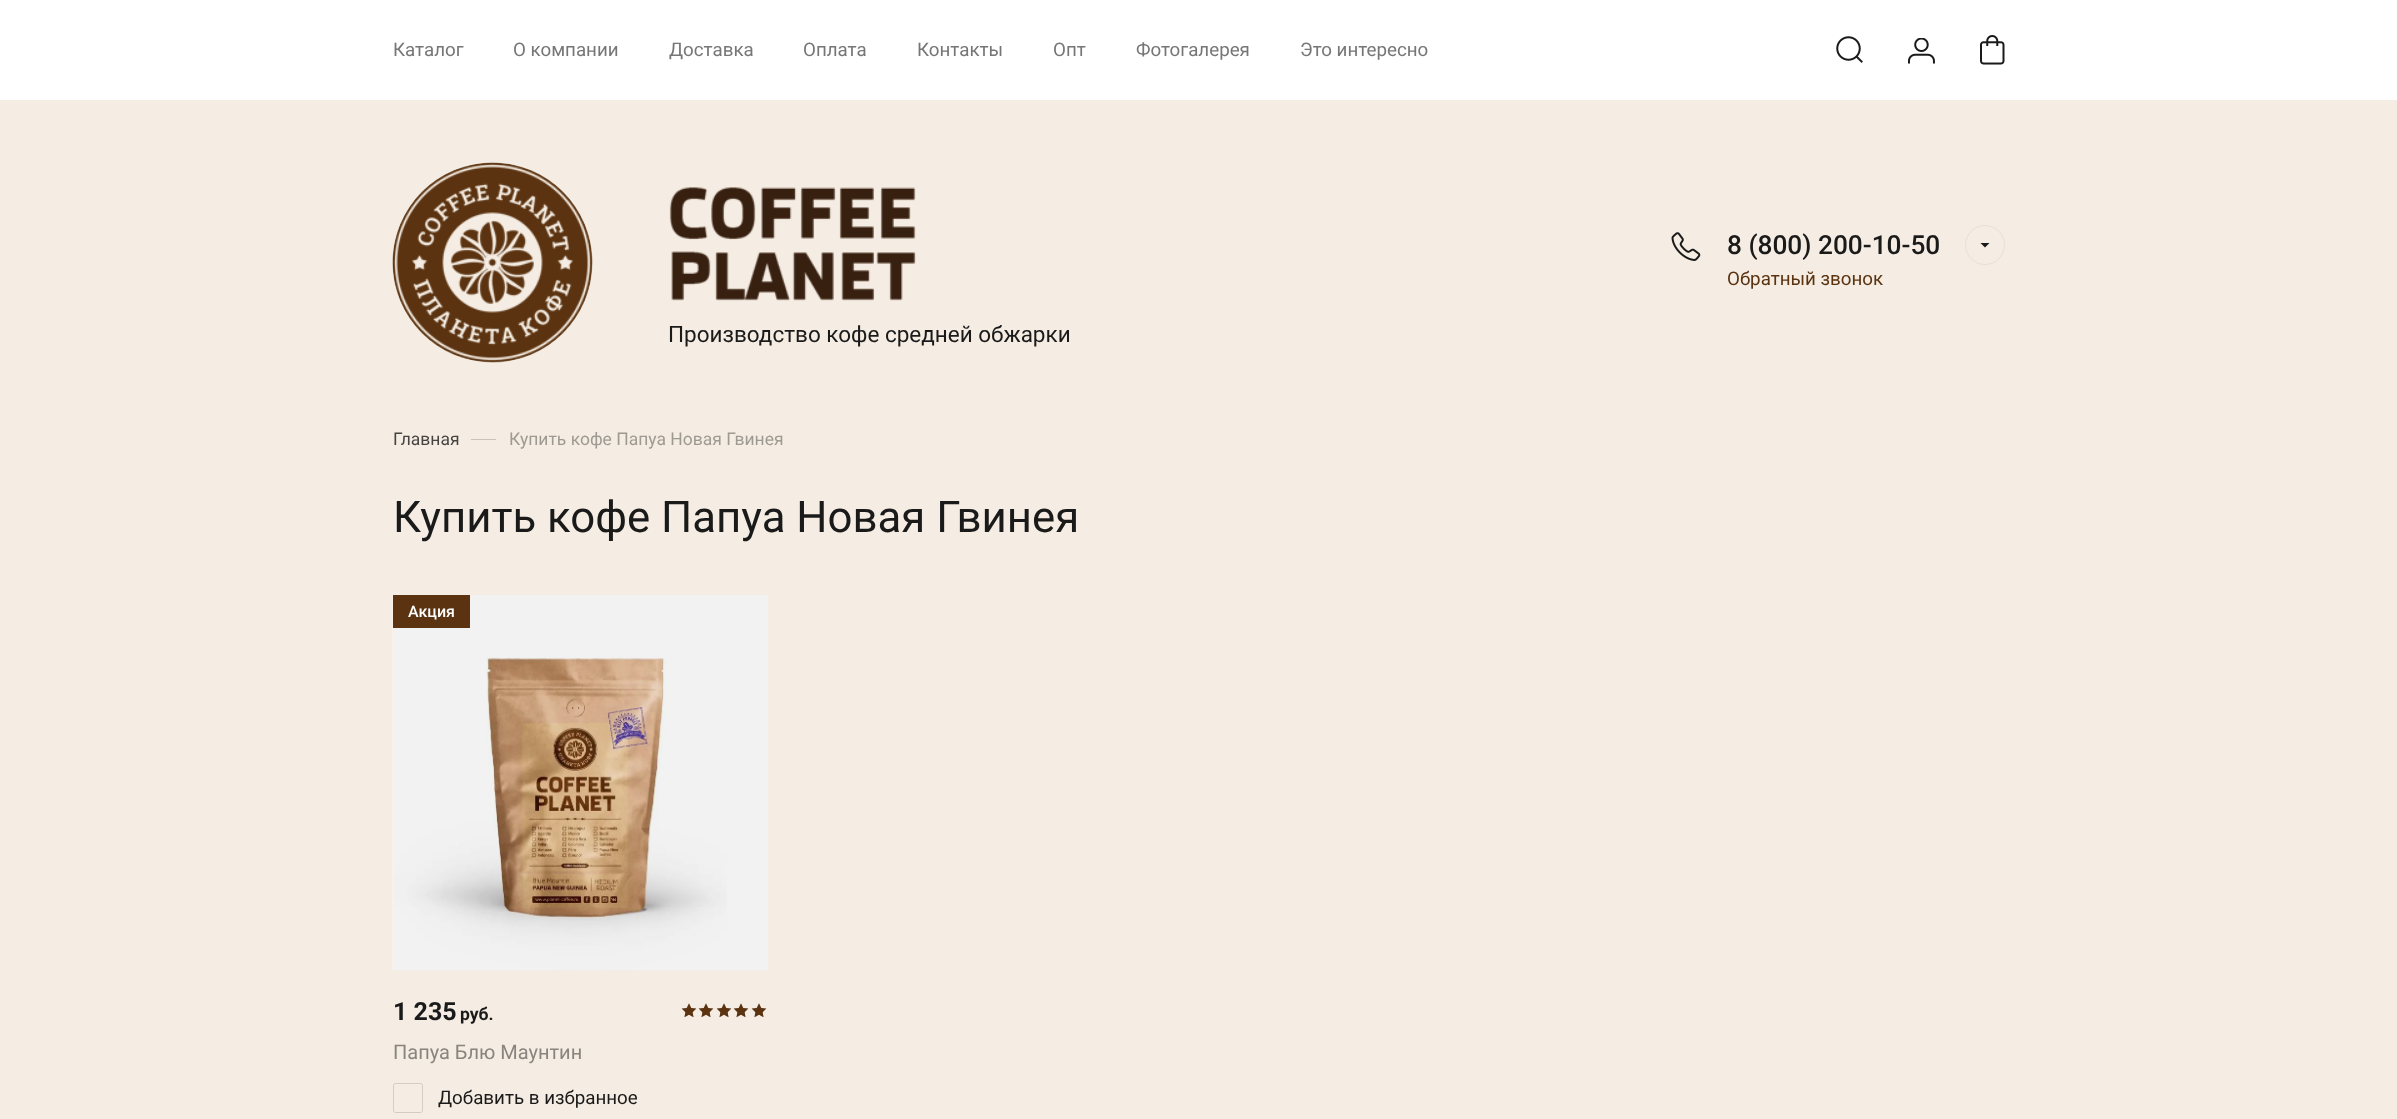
(async () => {
    const canvas = document.querySelector("canvas");
    canvas.width = 2397;
    canvas.height = 1119;
    const context = canvas.getContext("2d");
    context.miterLimit = 4;
    context.fontKerning = "normal";
    function write(s, x, y, font, color) {
        context.font = font;
        context.fillStyle = color;
        context.fillText(s, x, y);
    }
    function block(x, y, w, h, color) {
        context.fillStyle = color;
        context.fillRect(x, y, w, h);
    }
    async function photo(src, x, y, w, h) {
        const img = new Image();
        img.src = src;
        await img.decode();
        context.drawImage(img, x, y, w, h);
    }

    block(0, 0, 2397, 1119, "rgb(245, 237, 227)");
    block(0, 0, 2397, 100, "rgb(255, 255, 255)");
    write("Каталог", 393, 56, "18.75px Roboto", "rgb(118, 118, 118)");
    write("О компании", 513, 56, "18.75px Roboto", "rgb(118, 118, 118)");
    write("Доставка", 669, 56, "18.75px Roboto", "rgb(118, 118, 118)");
    write("Оплата", 803, 56, "18.75px Roboto", "rgb(118, 118, 118)");
    write("Контакты", 917, 56, "18.75px Roboto", "rgb(118, 118, 118)");
    write("Опт", 1053, 56, "18.75px Roboto", "rgb(118, 118, 118)");
    write("Фотогалерея", 1136, 56, "18.75px Roboto", "rgb(118, 118, 118)");
    write("Это интересно", 1300, 56, "18.75px Roboto", "rgb(118, 118, 118)");
    await photo("media/1.png", 1836, 36, 27, 27);
    await photo("media/2.png", 1908, 38, 27, 26);
    await photo("media/3.png", 1980, 35, 25, 30);
    await photo("media/4.png", 1671, 232, 30, 29);
    write("8 (800) 200-10-50", 1727, 254, "500 26.25px Roboto", "rgb(26, 26, 26)");
    write("Обратный звонок", 1727, 285, "18.75px Roboto", "rgb(91, 51, 17)");
    context.save();
    context.beginPath();
    context.rect(1980, 243, 10, 5);
    context.clip();
    context.fillStyle = "rgb(26, 26, 26)";
    context.beginPath();
    context.moveTo(1985, 247.5);
    context.lineTo(1990, 242.5);
    context.lineTo(1980, 242.5);
    context.closePath();
    context.fill();
    context.restore();
    context.beginPath();
    context.arc(1985, 245, 19.5, 0, Math.PI * 2);
    context.strokeStyle = "rgb(232, 224, 215)";
    context.stroke();
    await photo("media/5.png", 392, 162, 201, 201);
    await photo("media/6.png", 669, 187, 247, 114);
    write("Производство кофе средней обжарки", 668, 342, "22.5px Roboto", "rgb(26, 26, 26)");
    write("Главная", 393, 445, "17.5px Roboto", "rgb(70, 68, 66)");
    block(471, 439, 25, 1, "rgb(201, 195, 187)");
    write("Купить кофе Папуа Новая Гвинея", 509, 445, "17.5px Roboto", "rgb(157, 153, 147)");
    write("Купить кофе Папуа Новая Гвинея", 393, 532, "43.75px Roboto", "rgb(26, 26, 26)");
    block(727, 595, 41, 375, "rgb(242, 242, 242)");
    await photo("media/7.png", 392, 595, 335, 375);
    block(393, 595, 77, 33, "rgb(91, 51, 17)");
    write("Акция", 408, 617, "500 16px Roboto", "rgb(255, 255, 255)");
    write("1 235", 393, 1020, "bold 25px Roboto", "rgb(26, 26, 26)");
    write("руб.", 460, 1020, "bold 17.5px Roboto", "rgb(26, 26, 26)");
    await photo("media/8.png", 682, 1004, 84, 13);
    await photo("media/9.png", 681, 1003, 86, 15);
    write("Папуа Блю Маунтин", 393, 1059, "20px Roboto", "rgb(136, 132, 127)");
    context.beginPath();
    context.roundRect(393.5, 1083.5, 29, 29, 2);
    context.strokeStyle = "rgb(212, 205, 197)";
    context.stroke();
    write("Добавить в избранное", 438, 1104, "18.75px Roboto", "rgb(26, 26, 26)");
})();
